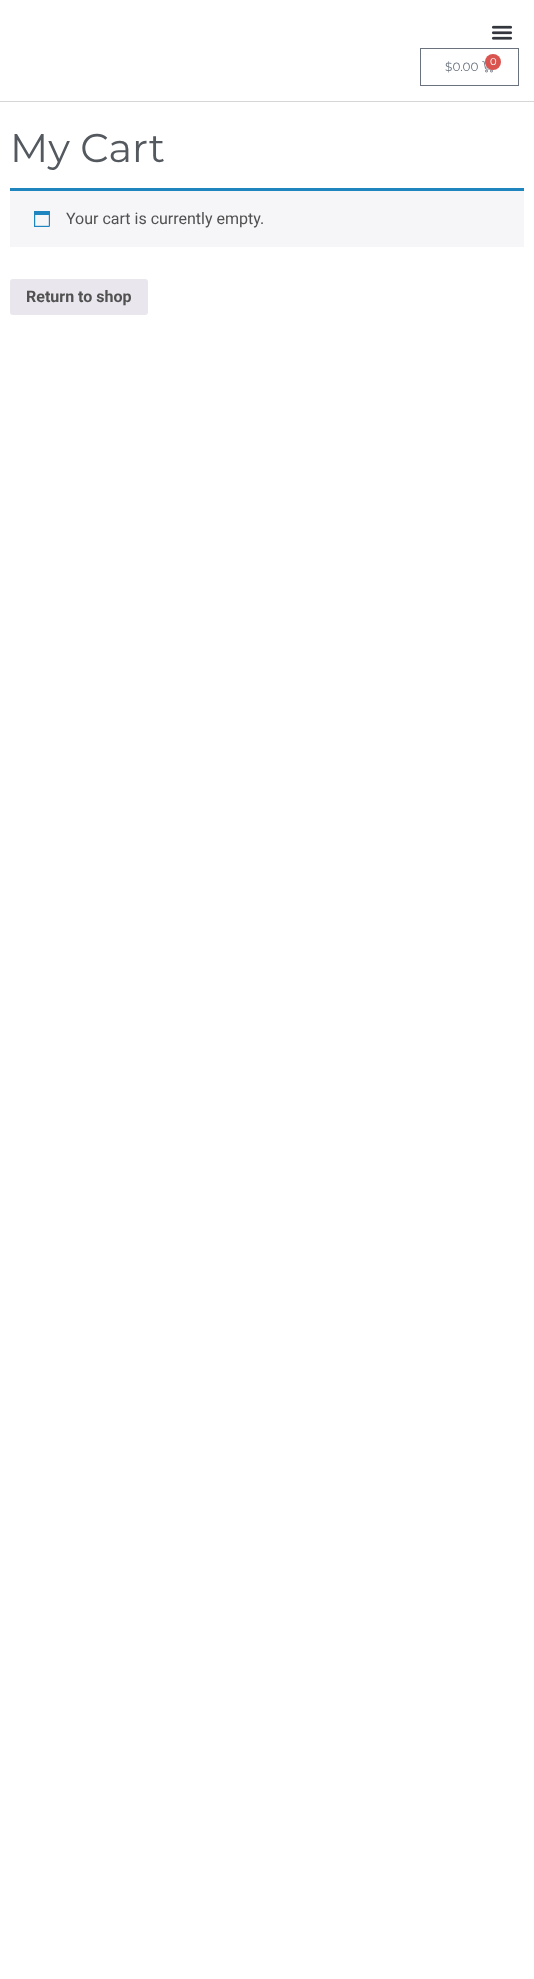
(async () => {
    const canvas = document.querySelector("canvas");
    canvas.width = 534;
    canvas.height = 1979;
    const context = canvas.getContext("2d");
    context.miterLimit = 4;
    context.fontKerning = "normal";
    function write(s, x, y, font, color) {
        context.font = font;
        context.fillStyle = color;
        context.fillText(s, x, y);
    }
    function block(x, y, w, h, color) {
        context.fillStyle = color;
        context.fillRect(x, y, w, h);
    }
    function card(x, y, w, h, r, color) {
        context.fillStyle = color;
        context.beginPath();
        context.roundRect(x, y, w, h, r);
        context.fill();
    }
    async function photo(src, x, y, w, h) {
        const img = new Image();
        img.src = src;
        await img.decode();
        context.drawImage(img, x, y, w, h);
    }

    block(0, 0, 534, 1979, "rgb(255, 255, 255)");
    block(0, 101, 534, 1, "rgb(214, 214, 214)");
    await photo("media/1.png", 491, 25, 22, 15);
    context.strokeStyle = "rgb(105, 114, 125)";
    context.strokeRect(420.5, 48.5, 98, 37);
    write("$0.00", 445, 71, "12px Montserrat", "rgb(105, 114, 125)");
    await photo("media/2.png", 482, 61, 11, 12);
    context.fillStyle = "rgb(217, 83, 79)";
    context.beginPath();
    context.arc(493, 62, 8, 0, Math.PI * 2);
    context.fill();
    write("0", 490, 65, "10px Montserrat", "rgb(255, 255, 255)");
    write("My Cart", 10, 162, "40px Montserrat", "rgb(84, 89, 95)");
    block(10, 191, 514, 56, "rgb(246, 245, 248)");
    block(10, 188, 514, 3, "rgb(30, 133, 190)");
    await photo("media/3.png", 34, 211, 16, 16);
    write("Your cart is currently empty.", 66, 224, "16px Roboto", "rgb(81, 81, 81)");
    card(10, 279, 138, 36, 3, "rgb(233, 230, 237)");
    write("Return to shop", 26, 302, "bold 16px Roboto", "rgb(81, 81, 81)");
})();
